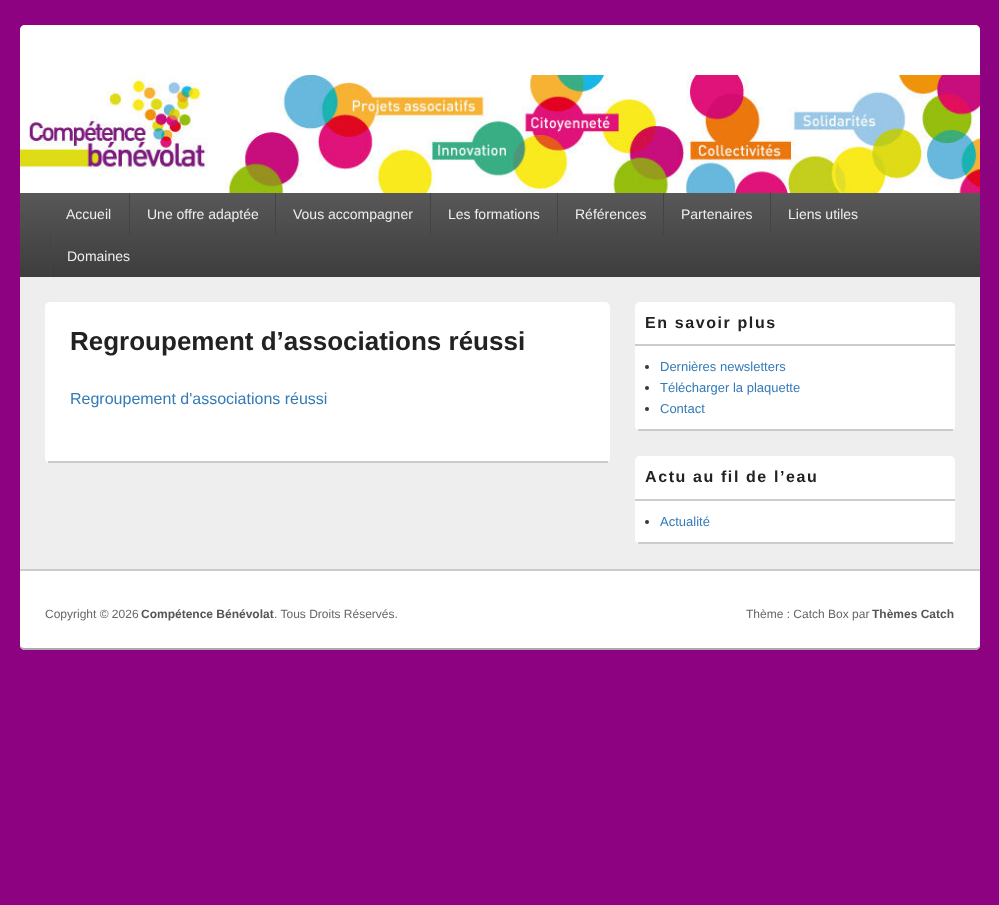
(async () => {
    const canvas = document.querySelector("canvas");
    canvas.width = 999;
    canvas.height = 905;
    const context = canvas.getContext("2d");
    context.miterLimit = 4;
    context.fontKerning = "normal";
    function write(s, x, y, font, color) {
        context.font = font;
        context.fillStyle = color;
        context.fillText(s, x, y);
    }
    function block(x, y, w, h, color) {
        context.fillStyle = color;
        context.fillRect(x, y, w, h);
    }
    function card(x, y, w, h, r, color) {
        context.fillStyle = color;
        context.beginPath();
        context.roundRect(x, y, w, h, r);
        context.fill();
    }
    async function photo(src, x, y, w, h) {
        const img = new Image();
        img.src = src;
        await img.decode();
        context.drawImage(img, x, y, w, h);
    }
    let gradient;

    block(0, 0, 999, 905, "rgb(141, 2, 128)");
    card(20, 25, 960, 625, 5, "rgb(238, 238, 238)");
    context.fillStyle = "rgb(255, 255, 255)";
    context.beginPath();
    context.roundRect(20, 25, 960, 252, [5, 5, 0, 0]);
    context.fill();
    await photo("media/1.png", 20, 75, 960, 118);
    gradient = context.createLinearGradient(500, 193, 500, 277);
    gradient.addColorStop(0, "rgb(88, 88, 88)");
    gradient.addColorStop(1, "rgb(61, 61, 61)");
    context.fillStyle = gradient;
    context.fillRect(20, 193, 960, 84);
    write("Accueil", 66, 219, "14px Liberation Sans", "rgb(238, 238, 238)");
    block(129, 193, 1, 42, "rgb(68, 68, 68)");
    write("Une offre adaptée", 147, 219, "14px Liberation Sans", "rgb(238, 238, 238)");
    block(275, 193, 1, 42, "rgb(68, 68, 68)");
    write("Vous accompagner", 293, 219, "14px Liberation Sans", "rgb(238, 238, 238)");
    block(430, 193, 1, 42, "rgb(68, 68, 68)");
    write("Les formations", 448, 219, "14px Liberation Sans", "rgb(238, 238, 238)");
    block(557, 193, 1, 42, "rgb(68, 68, 68)");
    write("Références", 575, 219, "14px Liberation Sans", "rgb(238, 238, 238)");
    block(663, 193, 1, 42, "rgb(68, 68, 68)");
    write("Partenaires", 681, 219, "14px Liberation Sans", "rgb(238, 238, 238)");
    block(770, 193, 1, 42, "rgb(68, 68, 68)");
    write("Liens utiles", 788, 219, "14px Liberation Sans", "rgb(238, 238, 238)");
    block(50, 235, 1, 42, "rgb(68, 68, 68)");
    write("Domaines", 67, 261, "14px Liberation Sans", "rgb(238, 238, 238)");
    card(45, 302, 565, 161, 5, "rgb(255, 255, 255)");
    block(48, 461, 560, 2, "rgb(204, 204, 204)");
    write("Regroupement d’associations réussi", 70, 350, "bold 26px Liberation Sans", "rgb(34, 34, 34)");
    write("Regroupement d'associations réussi", 70, 404, "16px Liberation Sans", "rgb(51, 122, 183)");
    card(635, 302, 320, 129, 5, "rgb(255, 255, 255)");
    block(638, 429, 315, 2, "rgb(204, 204, 204)");
    block(635, 344, 320, 2, "rgb(204, 204, 204)");
    context.letterSpacing = "1.6px";
    write("En savoir plus", 645, 328, "bold 16px Liberation Sans", "rgb(34, 34, 34)");
    context.fillStyle = "rgb(55, 55, 55)";
    context.beginPath();
    context.arc(647, 367, 2, 0, Math.PI * 2);
    context.fill();
    context.letterSpacing = "0px";
    write("Dernières newsletters", 660, 371, "13px Liberation Sans", "rgb(51, 122, 183)");
    context.fillStyle = "rgb(55, 55, 55)";
    context.beginPath();
    context.arc(647, 388, 2, 0, Math.PI * 2);
    context.fill();
    write("Télécharger la plaquette", 660, 392, "13px Liberation Sans", "rgb(51, 122, 183)");
    context.fillStyle = "rgb(55, 55, 55)";
    context.beginPath();
    context.arc(647, 409, 2, 0, Math.PI * 2);
    context.fill();
    write("Contact", 660, 413, "13px Liberation Sans", "rgb(51, 122, 183)");
    card(635, 456, 320, 88, 5, "rgb(255, 255, 255)");
    block(638, 542, 315, 2, "rgb(204, 204, 204)");
    block(635, 499, 320, 2, "rgb(204, 204, 204)");
    context.letterSpacing = "1.6px";
    write("Actu au fil de l’eau", 645, 482, "bold 16px Liberation Sans", "rgb(34, 34, 34)");
    context.fillStyle = "rgb(55, 55, 55)";
    context.beginPath();
    context.arc(647, 522, 2, 0, Math.PI * 2);
    context.fill();
    context.letterSpacing = "0px";
    write("Actualité", 660, 526, "13px Liberation Sans", "rgb(51, 122, 183)");
    block(20, 569, 960, 1, "rgb(204, 204, 204)");
    context.fillStyle = "rgb(255, 255, 255)";
    context.beginPath();
    context.roundRect(20, 570, 960, 80, [0, 0, 5, 5]);
    context.fill();
    block(20, 570, 960, 1, "rgb(204, 204, 204)");
    context.fillStyle = "rgb(170, 170, 170)";
    context.beginPath();
    context.moveTo(25, 650);
    context.lineTo(975, 650);
    context.bezierCurveTo(978, 650, 980, 648, 980, 645);
    context.bezierCurveTo(980, 647, 978, 648, 975, 648);
    context.lineTo(25, 648);
    context.bezierCurveTo(22, 648, 20, 647, 20, 645);
    context.bezierCurveTo(20, 648, 22, 650, 25, 650);
    context.closePath();
    context.fill();
    write("Copyright © 2026", 45, 618, "12px Liberation Sans", "rgb(102, 102, 102)");
    write("Compétence Bénévolat", 141, 618, "bold 12px Liberation Sans", "rgb(85, 85, 85)");
    write(". Tous Droits Réservés.", 274, 618, "12px Liberation Sans", "rgb(102, 102, 102)");
    write("Thème : Catch Box par", 746, 618, "12px Liberation Sans", "rgb(102, 102, 102)");
    write("Thèmes Catch", 872, 618, "bold 12px Liberation Sans", "rgb(85, 85, 85)");
})();
